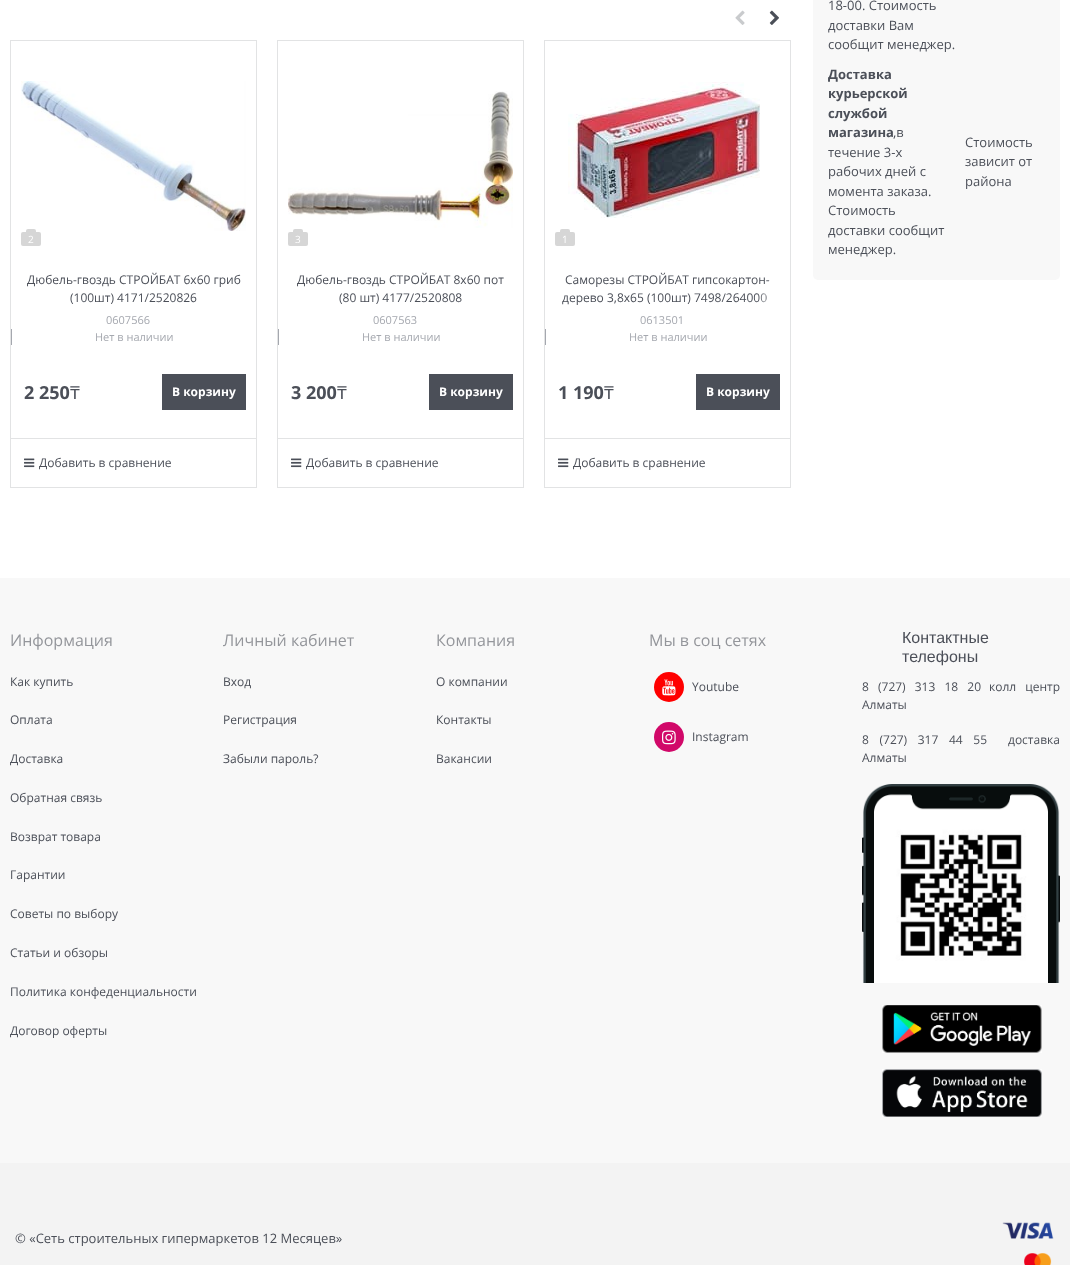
(async () => {
    const canvas = document.querySelector("canvas");
    canvas.width = 1070;
    canvas.height = 1265;
    const context = canvas.getContext("2d");
    context.miterLimit = 4;
    context.fontKerning = "normal";
    function write(s, x, y, font, color) {
        context.font = font;
        context.fillStyle = color;
        context.fillText(s, x, y);
    }
    function block(x, y, w, h, color) {
        context.fillStyle = color;
        context.fillRect(x, y, w, h);
    }
    function card(x, y, w, h, r, color) {
        context.fillStyle = color;
        context.beginPath();
        context.roundRect(x, y, w, h, r);
        context.fill();
    }
    async function photo(src, x, y, w, h) {
        const img = new Image();
        img.src = src;
        await img.decode();
        context.drawImage(img, x, y, w, h);
    }
    let gradient;

    block(0, 0, 1070, 1265, "rgb(255, 255, 255)");
    card(813, -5, 247, 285, 5, "rgb(248, 248, 248)");
    write("18-00. Стоимость", 828, 10, "13px Open Sans", "rgb(75, 79, 88)");
    write("доставки Вам", 828, 30, "13px Open Sans", "rgb(75, 79, 88)");
    write("сообщит менеджер.", 828, 49, "13px Open Sans", "rgb(75, 79, 88)");
    write("Доставка", 828, 79, "bold 13px Open Sans", "rgb(75, 79, 88)");
    write("курьерской", 828, 98, "bold 13px Open Sans", "rgb(75, 79, 88)");
    write("службой", 828, 118, "bold 13px Open Sans", "rgb(75, 79, 88)");
    write("магазина", 828, 137, "bold 13px Open Sans", "rgb(75, 79, 88)");
    write(",в", 893, 137, "13px Open Sans", "rgb(75, 79, 88)");
    write("течение 3-х", 828, 157, "13px Open Sans", "rgb(75, 79, 88)");
    write("рабочих дней с", 828, 176, "13px Open Sans", "rgb(75, 79, 88)");
    write("момента заказа.", 828, 196, "13px Open Sans", "rgb(75, 79, 88)");
    write("Стоимость", 828, 215, "13px Open Sans", "rgb(75, 79, 88)");
    write("доставки сообщит", 828, 235, "13px Open Sans", "rgb(75, 79, 88)");
    write("менеджер.", 828, 254, "13px Open Sans", "rgb(75, 79, 88)");
    write("Стоимость", 965, 147, "13px Open Sans", "rgb(75, 79, 88)");
    write("зависит от", 965, 166, "13px Open Sans", "rgb(75, 79, 88)");
    write("района", 965, 186, "13px Open Sans", "rgb(75, 79, 88)");
    await photo("media/1.png", 735, 10, 10, 15);
    await photo("media/2.png", 769, 10, 10, 15);
    context.strokeStyle = "rgb(226, 227, 228)";
    context.strokeRect(10.5, 40.5, 246, 447);
    await photo("media/3.png", 21, 81, 225, 150);
    card(21, 232, 20, 14, 2, "rgb(214, 214, 214)");
    context.beginPath();
    context.roundRect(26, 229, 10, 3, [2, 2, 0, 0]);
    context.fill();
    write("2", 28, 243, "10px Open Sans", "rgb(255, 255, 255)");
    write("Дюбель-гвоздь СТРОЙБАТ 6х60 гриб", 27, 284, "12px Open Sans", "rgb(75, 79, 88)");
    write("(100шт) 4171/2520826", 70, 302, "12px Open Sans", "rgb(75, 79, 88)");
    write("0607566", 106, 324, "11px Open Sans", "rgb(165, 168, 175)");
    block(11, 329, 1, 16, "rgb(165, 168, 175)");
    write("Нет в наличии", 95, 341, "11px Open Sans", "rgb(165, 168, 175)");
    write("2 250", 24, 399, "bold 18px Open Sans", "rgb(75, 79, 88)");
    write("₸", 70, 399, "18px Noto Sans", "rgb(75, 79, 88)");
    block(162, 374, 84, 36, "rgb(75, 79, 88)");
    write("В корзину", 172, 396, "bold 12px Open Sans", "rgb(255, 255, 255)");
    block(11, 438, 245, 1, "rgb(226, 227, 228)");
    await photo("media/4.png", 24, 458, 11, 10);
    write("Добавить в сравнение", 39, 467, "12px Open Sans", "rgb(75, 79, 88)");
    context.strokeRect(277.5, 40.5, 246, 447);
    await photo("media/5.png", 288, 91, 225, 137);
    card(288, 232, 20, 14, 2, "rgb(214, 214, 214)");
    context.beginPath();
    context.roundRect(293, 229, 10, 3, [2, 2, 0, 0]);
    context.fill();
    write("3", 295, 243, "10px Open Sans", "rgb(255, 255, 255)");
    write("Дюбель-гвоздь СТРОЙБАТ 8х60 пот", 297, 284, "12px Open Sans", "rgb(75, 79, 88)");
    write("(80 шт) 4177/2520808", 339, 302, "12px Open Sans", "rgb(75, 79, 88)");
    write("0607563", 373, 324, "11px Open Sans", "rgb(165, 168, 175)");
    block(278, 329, 1, 16, "rgb(165, 168, 175)");
    write("Нет в наличии", 362, 341, "11px Open Sans", "rgb(165, 168, 175)");
    write("3 200", 291, 399, "bold 18px Open Sans", "rgb(75, 79, 88)");
    write("₸", 337, 399, "18px Noto Sans", "rgb(75, 79, 88)");
    block(429, 374, 84, 36, "rgb(75, 79, 88)");
    write("В корзину", 439, 396, "bold 12px Open Sans", "rgb(255, 255, 255)");
    block(278, 438, 245, 1, "rgb(226, 227, 228)");
    await photo("media/4.png", 291, 458, 11, 10);
    write("Добавить в сравнение", 306, 467, "12px Open Sans", "rgb(75, 79, 88)");
    context.strokeRect(544.5, 40.5, 246, 447);
    await photo("media/6.png", 568, 82, 192, 136);
    card(555, 232, 20, 14, 2, "rgb(214, 214, 214)");
    context.beginPath();
    context.roundRect(560, 229, 10, 3, [2, 2, 0, 0]);
    context.fill();
    write("1", 562, 243, "10px Open Sans", "rgb(255, 255, 255)");
    write("Саморезы СТРОЙБАТ гипсокартон-", 565, 284, "12px Open Sans", "rgb(75, 79, 88)");
    write("дерево 3,8х65 (100шт) 7498/264000", 562, 302, "12px Open Sans", "rgb(75, 79, 88)");
    gradient = context.createLinearGradient(758, 301, 780, 301);
    gradient.addColorStop(0, "rgba(255, 255, 255, 0)");
    gradient.addColorStop(0.7, "rgb(255, 255, 255)");
    context.fillStyle = gradient;
    context.fillRect(758, 293, 8, 10);
    write("0613501", 640, 324, "11px Open Sans", "rgb(165, 168, 175)");
    block(545, 329, 1, 16, "rgb(165, 168, 175)");
    write("Нет в наличии", 629, 341, "11px Open Sans", "rgb(165, 168, 175)");
    write("1 190", 558, 399, "bold 18px Open Sans", "rgb(75, 79, 88)");
    write("₸", 604, 399, "18px Noto Sans", "rgb(75, 79, 88)");
    block(696, 374, 84, 36, "rgb(75, 79, 88)");
    write("В корзину", 706, 396, "bold 12px Open Sans", "rgb(255, 255, 255)");
    block(545, 438, 245, 1, "rgb(226, 227, 228)");
    await photo("media/4.png", 558, 458, 11, 10);
    write("Добавить в сравнение", 573, 467, "12px Open Sans", "rgb(75, 79, 88)");
    block(0, 578, 1070, 585, "rgb(248, 248, 248)");
    write("Информация", 10, 646, "16px Open Sans", "rgb(148, 150, 155)");
    write("Как купить", 10, 686, "12px Open Sans", "rgb(75, 79, 88)");
    write("Оплата", 10, 724, "12px Open Sans", "rgb(75, 79, 88)");
    write("Доставка", 10, 763, "12px Open Sans", "rgb(75, 79, 88)");
    write("Обратная связь", 10, 802, "12px Open Sans", "rgb(75, 79, 88)");
    write("Возврат товара", 10, 841, "12px Open Sans", "rgb(75, 79, 88)");
    write("Гарантии", 10, 879, "12px Open Sans", "rgb(75, 79, 88)");
    write("Советы по выбору", 10, 918, "12px Open Sans", "rgb(75, 79, 88)");
    write("Статьи и обзоры", 10, 957, "12px Open Sans", "rgb(75, 79, 88)");
    write("Политика конфеденциальности", 10, 996, "12px Open Sans", "rgb(75, 79, 88)");
    write("Договор оферты", 10, 1035, "12px Open Sans", "rgb(75, 79, 88)");
    write("Личный кабинет", 223, 646, "16px Open Sans", "rgb(148, 150, 155)");
    write("Вход", 223, 686, "12px Open Sans", "rgb(75, 79, 88)");
    write("Регистрация", 223, 724, "12px Open Sans", "rgb(75, 79, 88)");
    write("Забыли пароль?", 223, 763, "12px Open Sans", "rgb(75, 79, 88)");
    write("Компания", 436, 646, "16px Open Sans", "rgb(148, 150, 155)");
    write("О компании", 436, 686, "12px Open Sans", "rgb(75, 79, 88)");
    write("Контакты", 436, 724, "12px Open Sans", "rgb(75, 79, 88)");
    write("Вакансии", 436, 763, "12px Open Sans", "rgb(75, 79, 88)");
    write("Мы в соц сетях", 649, 646, "16px Open Sans", "rgb(148, 150, 155)");
    context.fillStyle = "rgb(255, 0, 0)";
    context.beginPath();
    context.arc(669, 687, 15, 0, Math.PI * 2);
    context.fill();
    await photo("media/7.png", 662, 679, 14, 17);
    write("Youtube", 692, 691, "12px Open Sans", "rgb(75, 79, 88)");
    context.fillStyle = "rgb(209, 8, 105)";
    context.beginPath();
    context.arc(669, 737, 15, 0, Math.PI * 2);
    context.fill();
    await photo("media/8.png", 662, 730, 14, 15);
    write("Instagram", 692, 741, "12px Open Sans", "rgb(75, 79, 88)");
    write("Контактные", 902, 643, "16px Liberation Sans", "rgb(75, 79, 88)");
    write("телефоны", 902, 662, "16px Liberation Sans", "rgb(75, 79, 88)");
    context.wordSpacing = "6px";
    write("8 (727) 313 18 20", 862, 691, "12px Open Sans", "rgb(75, 79, 88)");
    write("колл центр", 989, 691, "12px Open Sans", "rgb(75, 79, 88)");
    context.wordSpacing = "0px";
    write("Алматы", 862, 709, "12px Open Sans", "rgb(75, 79, 88)");
    context.wordSpacing = "7.5px";
    write("8 (727) 317 44 55", 862, 744, "12px Open Sans", "rgb(75, 79, 88)");
    context.wordSpacing = "0px";
    write("доставка", 1008, 744, "12px Open Sans", "rgb(75, 79, 88)");
    write("Алматы", 862, 762, "12px Open Sans", "rgb(75, 79, 88)");
    await photo("media/9.png", 862, 784, 198, 199);
    await photo("media/10.png", 882, 1005, 160, 48);
    await photo("media/11.png", 882, 1069, 160, 48);
    block(0, 1163, 1070, 102, "rgb(243, 243, 243)");
    write("© «Сеть строительных гипермаркетов 12 Месяцев»", 15, 1243, "13px Open Sans", "rgb(75, 79, 88)");
    await photo("media/12.png", 1002, 1222, 52, 17);
    await photo("media/13.png", 1024, 1253, 28, 12);
})();
